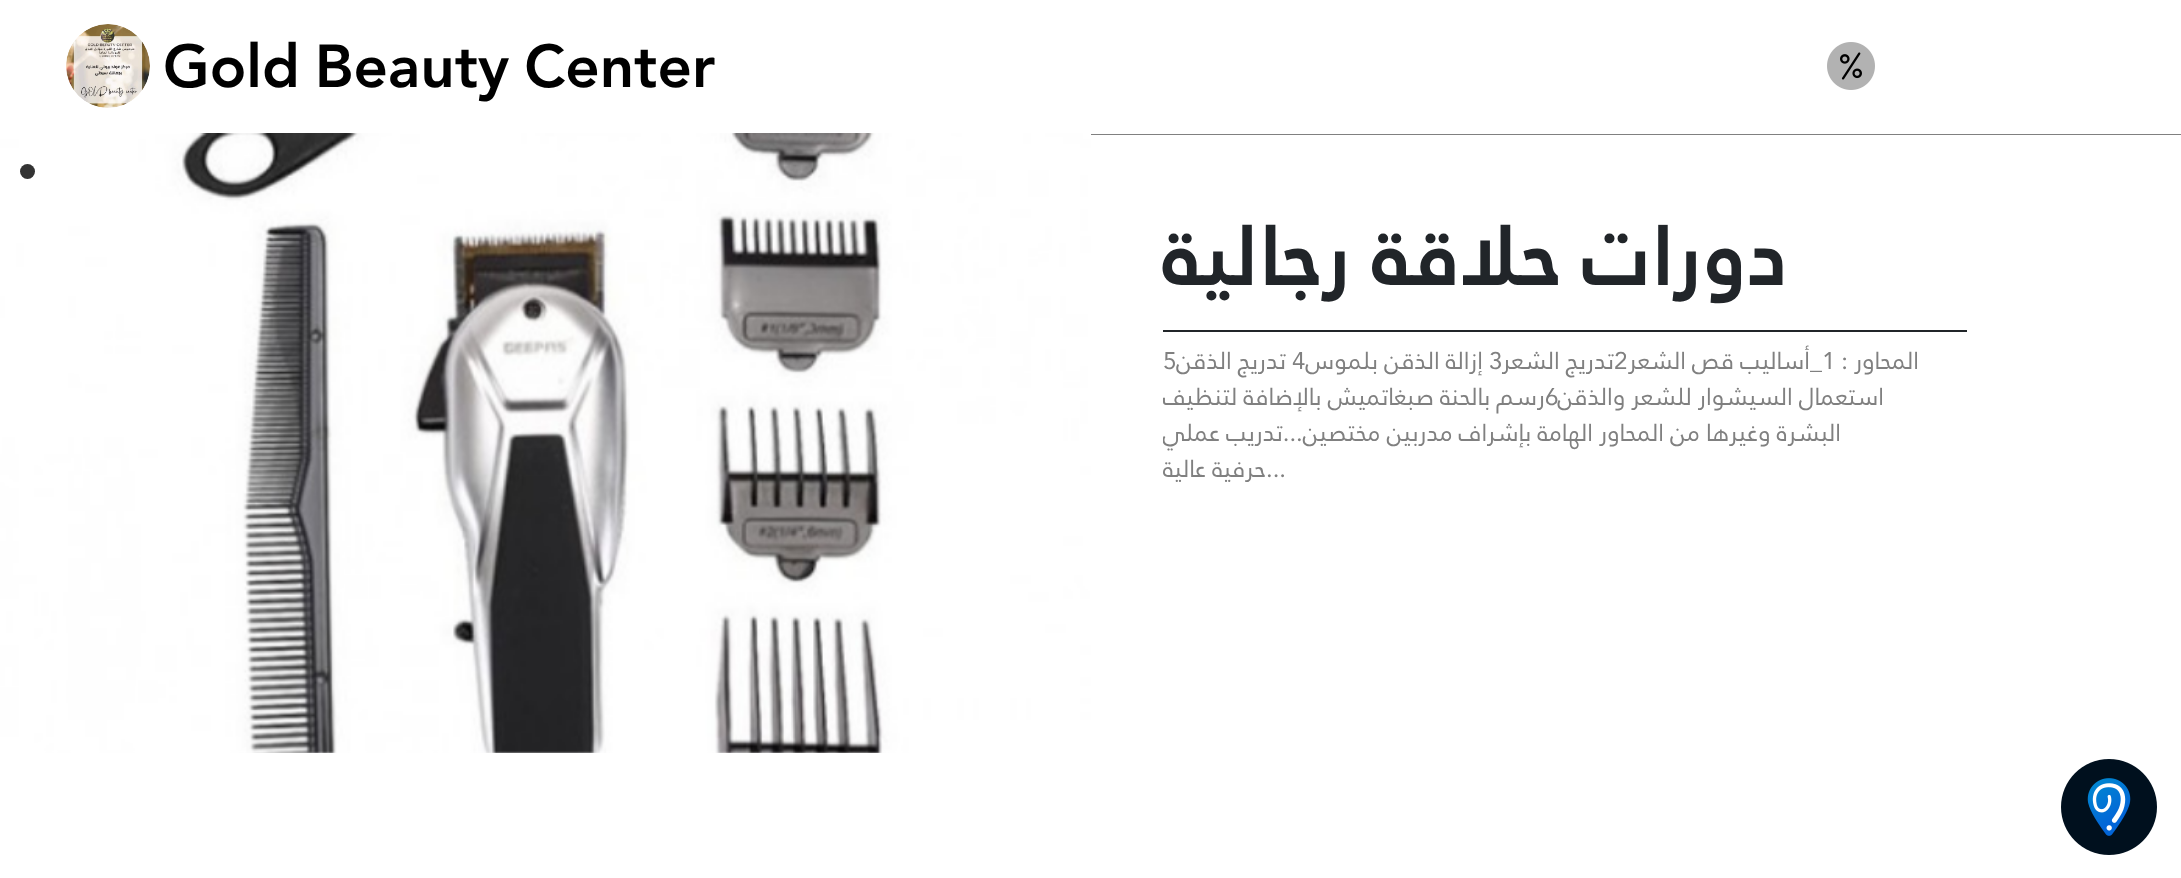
(async () => {
    const canvas = document.querySelector("canvas");
    canvas.width = 2181;
    canvas.height = 878;
    const context = canvas.getContext("2d");
    context.miterLimit = 4;
    context.fontKerning = "normal";
    function write(s, x, y, font, color) {
        context.font = font;
        context.fillStyle = color;
        context.fillText(s, x, y);
    }
    function block(x, y, w, h, color) {
        context.fillStyle = color;
        context.fillRect(x, y, w, h);
    }
    async function photo(src, x, y, w, h) {
        const img = new Image();
        img.src = src;
        await img.decode();
        context.drawImage(img, x, y, w, h);
    }

    block(0, 0, 2181, 878, "rgb(255, 255, 255)");
    context.fillStyle = "rgb(128, 128, 128)";
    context.filter = "blur(0.5px)";
    context.beginPath();
    context.rect(0, 2, 2181, 133);
    context.fill();
    context.filter = "none";
    block(0, 1, 2181, 133, "rgb(255, 255, 255)");
    await photo("media/1.png", 1827, 42, 48, 48);
    write("Gold Beauty Center", 163, 87, "bold 60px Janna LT", "rgb(0, 0, 0)");
    await photo("media/2.png", 66, 24, 84, 84);
    block(1163, 330, 804, 2, "rgb(33, 37, 41)");
    context.direction = "rtl";
    write("دورات حلاقة رجالية", 1788, 285, "bold 84px Janna LT", "rgb(33, 37, 41)");
    write("المحاور :", 1919, 369, "24px Janna LT", "rgb(128, 128, 128)");
    context.direction = "ltr";
    write("1", 1822, 369, "24px Janna LT", "rgb(128, 128, 128)");
    context.direction = "rtl";
    write("_أساليب قص الشعر", 1822, 369, "24px Janna LT", "rgb(128, 128, 128)");
    context.direction = "ltr";
    write("2", 1614, 369, "24px Janna LT", "rgb(128, 128, 128)");
    context.direction = "rtl";
    write("تدريج الشعر", 1614, 369, "24px Janna LT", "rgb(128, 128, 128)");
    context.direction = "ltr";
    write("3", 1489, 369, "24px Janna LT", "rgb(128, 128, 128)");
    context.direction = "rtl";
    write("إزالة الذقن بلموس", 1483, 369, "24px Janna LT", "rgb(128, 128, 128)");
    context.direction = "ltr";
    write("4", 1292, 369, "24px Janna LT", "rgb(128, 128, 128)");
    context.direction = "rtl";
    write("تدريج الذقن", 1286, 369, "24px Janna LT", "rgb(128, 128, 128)");
    context.direction = "ltr";
    write("5", 1163, 369, "24px Janna LT", "rgb(128, 128, 128)");
    context.direction = "rtl";
    write("استعمال السيشوار للشعر والذقن", 1884, 405, "24px Janna LT", "rgb(128, 128, 128)");
    context.direction = "ltr";
    write("6", 1545, 405, "24px Janna LT", "rgb(128, 128, 128)");
    context.save();
    context.beginPath();
    context.rect(1163, 344, 757, 330);
    context.clip();
    context.direction = "rtl";
    write("رسم بالحنة صبغاتميش بالإضافة لتنظيف", 1545, 405, "24px Janna LT", "rgb(128, 128, 128)");
    write("البشرة وغيرها من المحاور الهامة بإشراف مدربين مختصين...تدريب عملي", 1841, 441, "24px Janna LT", "rgb(128, 128, 128)");
    write("...حرفية عالية", 1286, 477, "24px Janna LT", "rgb(128, 128, 128)");
    context.restore();
    await photo("media/3.png", 0, 133, 1091, 620);
    context.fillStyle = "rgb(51, 51, 51)";
    context.beginPath();
    context.arc(27.5, 171.5, 7.5, 0, Math.PI * 2);
    context.fill();
    await photo("media/4.png", 2061, 759, 96, 96);
})();
